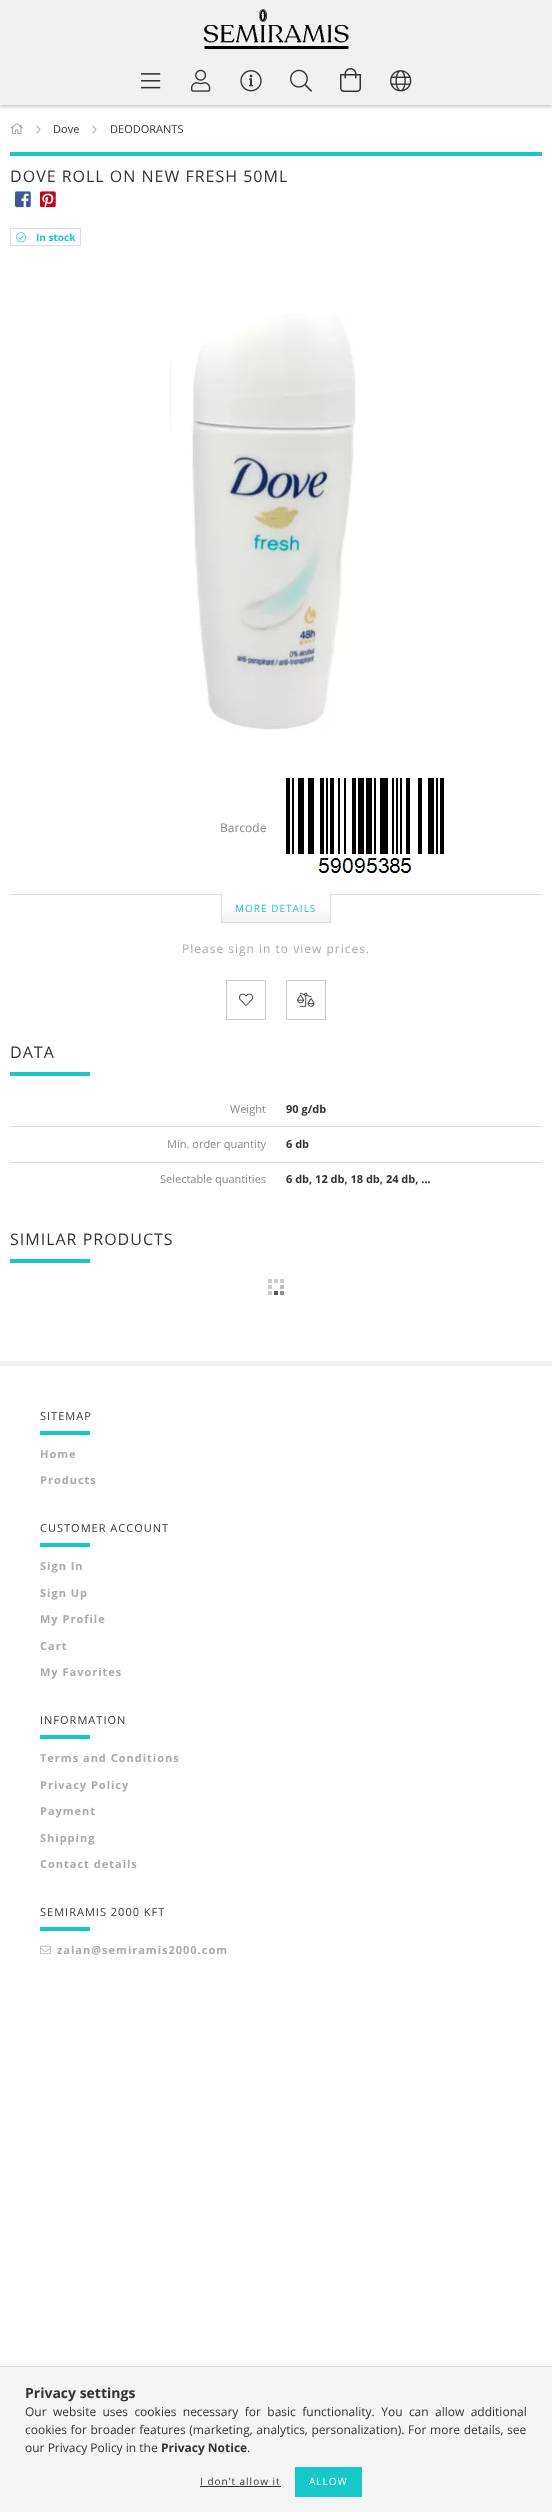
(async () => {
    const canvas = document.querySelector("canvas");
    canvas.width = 552;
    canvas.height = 2512;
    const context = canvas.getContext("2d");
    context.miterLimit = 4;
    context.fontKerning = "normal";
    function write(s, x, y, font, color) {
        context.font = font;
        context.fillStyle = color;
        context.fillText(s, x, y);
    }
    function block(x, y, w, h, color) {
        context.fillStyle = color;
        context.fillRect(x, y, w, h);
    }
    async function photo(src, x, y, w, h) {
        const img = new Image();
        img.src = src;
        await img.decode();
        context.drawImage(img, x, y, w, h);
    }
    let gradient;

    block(0, 0, 552, 2512, "rgb(255, 255, 255)");
    context.fillStyle = "rgba(0, 0, 0, 0.2)";
    context.filter = "blur(1.5px)";
    context.beginPath();
    context.rect(0, 2, 552, 105);
    context.fill();
    context.filter = "none";
    block(0, 0, 552, 105, "rgb(241, 241, 241)");
    await photo("media/1.png", 203, 9, 146, 40);
    await photo("media/2.png", 141, 73, 20, 16);
    await photo("media/3.png", 191, 69, 20, 23);
    await photo("media/4.png", 240, 70, 22, 22);
    await photo("media/5.png", 290, 69, 22, 23);
    await photo("media/6.png", 340, 68, 21, 24);
    await photo("media/7.png", 390, 70, 22, 22);
    await photo("media/8.png", 10, 123, 13, 11);
    await photo("media/9.png", 36, 125, 5, 9);
    write("Dove", 53, 133, "11px Open Sans", "rgb(51, 51, 51)");
    await photo("media/9.png", 92, 125, 5, 9);
    write("DEODORANTS", 110, 133, "11px Open Sans", "rgb(51, 51, 51)");
    block(10, 152, 532, 4, "rgb(24, 199, 199)");
    context.letterSpacing = "1px";
    write("DOVE ROLL ON NEW FRESH 50ML", 10, 182, "16px Open Sans", "rgb(51, 51, 51)");
    await photo("media/10.png", 15, 191, 16, 17);
    await photo("media/11.png", 40, 191, 16, 17);
    context.strokeStyle = "rgb(221, 221, 221)";
    context.strokeRect(10.5, 228.5, 70, 17);
    await photo("media/12.png", 16, 232, 10, 11);
    context.letterSpacing = "0px";
    write("In stock", 36, 241, "bold 10px Open Sans", "rgb(24, 199, 199)");
    await photo("media/13.png", 170, 314, 186, 416);
    write("Barcode", 220, 832, "12px Open Sans", "rgb(136, 136, 136)");
    await photo("media/14.png", 286, 778, 158, 95);
    gradient = context.createLinearGradient(276, 922, 276, 894);
    gradient.addColorStop(0, "rgb(241, 241, 241)");
    gradient.addColorStop(0.54, "rgb(255, 255, 255)");
    gradient.addColorStop(1, "rgb(255, 255, 255)");
    context.fillStyle = gradient;
    context.fillRect(222, 910, 108, 12);
    block(330, 893, 1, 30, "rgb(221, 221, 221)");
    block(221, 922, 110, 1, "rgb(221, 221, 221)");
    block(221, 893, 1, 30, "rgb(221, 221, 221)");
    block(10, 894, 212, 1, "rgb(221, 221, 221)");
    block(330, 894, 212, 1, "rgb(221, 221, 221)");
    context.letterSpacing = "1px";
    write("MORE DETAILS", 235, 912, "10px Open Sans", "rgb(24, 199, 199)");
    write("Please sign in to view prices.", 182, 953, "12px Open Sans", "rgb(170, 170, 170)");
    context.strokeStyle = "rgb(204, 204, 204)";
    context.strokeRect(226.5, 980.5, 39, 39);
    await photo("media/15.png", 239, 993, 14, 13);
    context.strokeRect(286.5, 980.5, 39, 39);
    await photo("media/16.png", 297, 992, 18, 15);
    write("DATA", 10, 1058, "16px Open Sans", "rgb(51, 51, 51)");
    block(10, 1072, 80, 4, "rgb(24, 199, 199)");
    context.letterSpacing = "0px";
    write("Weight", 230, 1113, "11px Open Sans", "rgb(136, 136, 136)");
    write("90 g/db", 286, 1113, "bold 11px Open Sans", "rgb(51, 51, 51)");
    block(10, 1126, 532, 1, "rgb(221, 221, 221)");
    write("Min. order quantity", 167, 1148, "11px Open Sans", "rgb(136, 136, 136)");
    write("6 db", 286, 1148, "bold 11px Open Sans", "rgb(51, 51, 51)");
    block(10, 1162, 532, 1, "rgb(221, 221, 221)");
    write("Selectable quantities", 160, 1183, "11px Open Sans", "rgb(136, 136, 136)");
    write("6 db, 12 db, 18 db, 24 db, ...", 286, 1183, "bold 11px Open Sans", "rgb(51, 51, 51)");
    context.letterSpacing = "1px";
    write("SIMILAR PRODUCTS", 10, 1245, "16px Open Sans", "rgb(51, 51, 51)");
    block(10, 1259, 80, 4, "rgb(24, 199, 199)");
    await photo("media/17.png", 268, 1279, 16, 16);
    block(0, 1361, 552, 5, "rgb(241, 241, 241)");
    write("SITEMAP", 40, 1420, "11px Open Sans", "rgb(51, 51, 51)");
    block(40, 1431, 50, 4, "rgb(24, 199, 199)");
    write("Home", 40, 1458, "bold 11px Open Sans", "rgb(170, 170, 170)");
    write("Products", 40, 1484, "bold 11px Open Sans", "rgb(170, 170, 170)");
    write("CUSTOMER ACCOUNT", 40, 1532, "11px Open Sans", "rgb(51, 51, 51)");
    block(40, 1543, 50, 4, "rgb(24, 199, 199)");
    write("Sign In", 40, 1570, "bold 11px Open Sans", "rgb(170, 170, 170)");
    write("Sign Up", 40, 1597, "bold 11px Open Sans", "rgb(170, 170, 170)");
    write("My Profile", 40, 1623, "bold 11px Open Sans", "rgb(170, 170, 170)");
    write("Cart", 40, 1650, "bold 11px Open Sans", "rgb(170, 170, 170)");
    write("My Favorites", 40, 1676, "bold 11px Open Sans", "rgb(170, 170, 170)");
    write("INFORMATION", 40, 1724, "11px Open Sans", "rgb(51, 51, 51)");
    block(40, 1735, 50, 4, "rgb(24, 199, 199)");
    write("Terms and Conditions", 40, 1762, "bold 11px Open Sans", "rgb(170, 170, 170)");
    write("Privacy Policy", 40, 1789, "bold 11px Open Sans", "rgb(170, 170, 170)");
    write("Payment", 40, 1815, "bold 11px Open Sans", "rgb(170, 170, 170)");
    write("Shipping", 40, 1842, "bold 11px Open Sans", "rgb(170, 170, 170)");
    write("Contact details", 40, 1868, "bold 11px Open Sans", "rgb(170, 170, 170)");
    write("SEMIRAMIS 2000 KFT", 40, 1916, "11px Open Sans", "rgb(51, 51, 51)");
    block(40, 1927, 50, 4, "rgb(24, 199, 199)");
    await photo("media/18.png", 40, 1945, 11, 9);
    write("zalan@semiramis2000.com", 57, 1954, "bold 11px Open Sans", "rgb(170, 170, 170)");
    block(0, 2367, 552, 145, "rgb(245, 245, 245)");
    block(0, 2366, 552, 1, "rgb(221, 221, 221)");
    context.letterSpacing = "0px";
    write("Privacy settings", 25, 2398, "bold 14px Open Sans", "rgb(51, 51, 51)");
    context.wordSpacing = "3.25px";
    write("Our website uses cookies necessary for basic functionality. You can allow additional", 25, 2416, "12px Open Sans", "rgb(51, 51, 51)");
    context.wordSpacing = "0.5px";
    write("cookies for broader features (marketing, analytics, personalization). For more details, see", 25, 2434, "12px Open Sans", "rgb(51, 51, 51)");
    context.wordSpacing = "0px";
    write("our Privacy Policy in the", 25, 2452, "12px Open Sans", "rgb(51, 51, 51)");
    write("Privacy Notice", 161, 2452, "bold 12px Open Sans", "rgb(51, 51, 51)");
    write(".", 247, 2452, "12px Open Sans", "rgb(51, 51, 51)");
    context.letterSpacing = "1px";
    write("I don’t allow it", 200, 2485, "10px Open Sans", "rgb(51, 51, 51)");
    block(200, 2486, 81, 1, "rgb(51, 51, 51)");
    block(295, 2467, 67, 30, "rgb(24, 199, 199)");
    write("ALLOW", 309, 2485, "10px Open Sans", "rgb(255, 255, 255)");
})();
